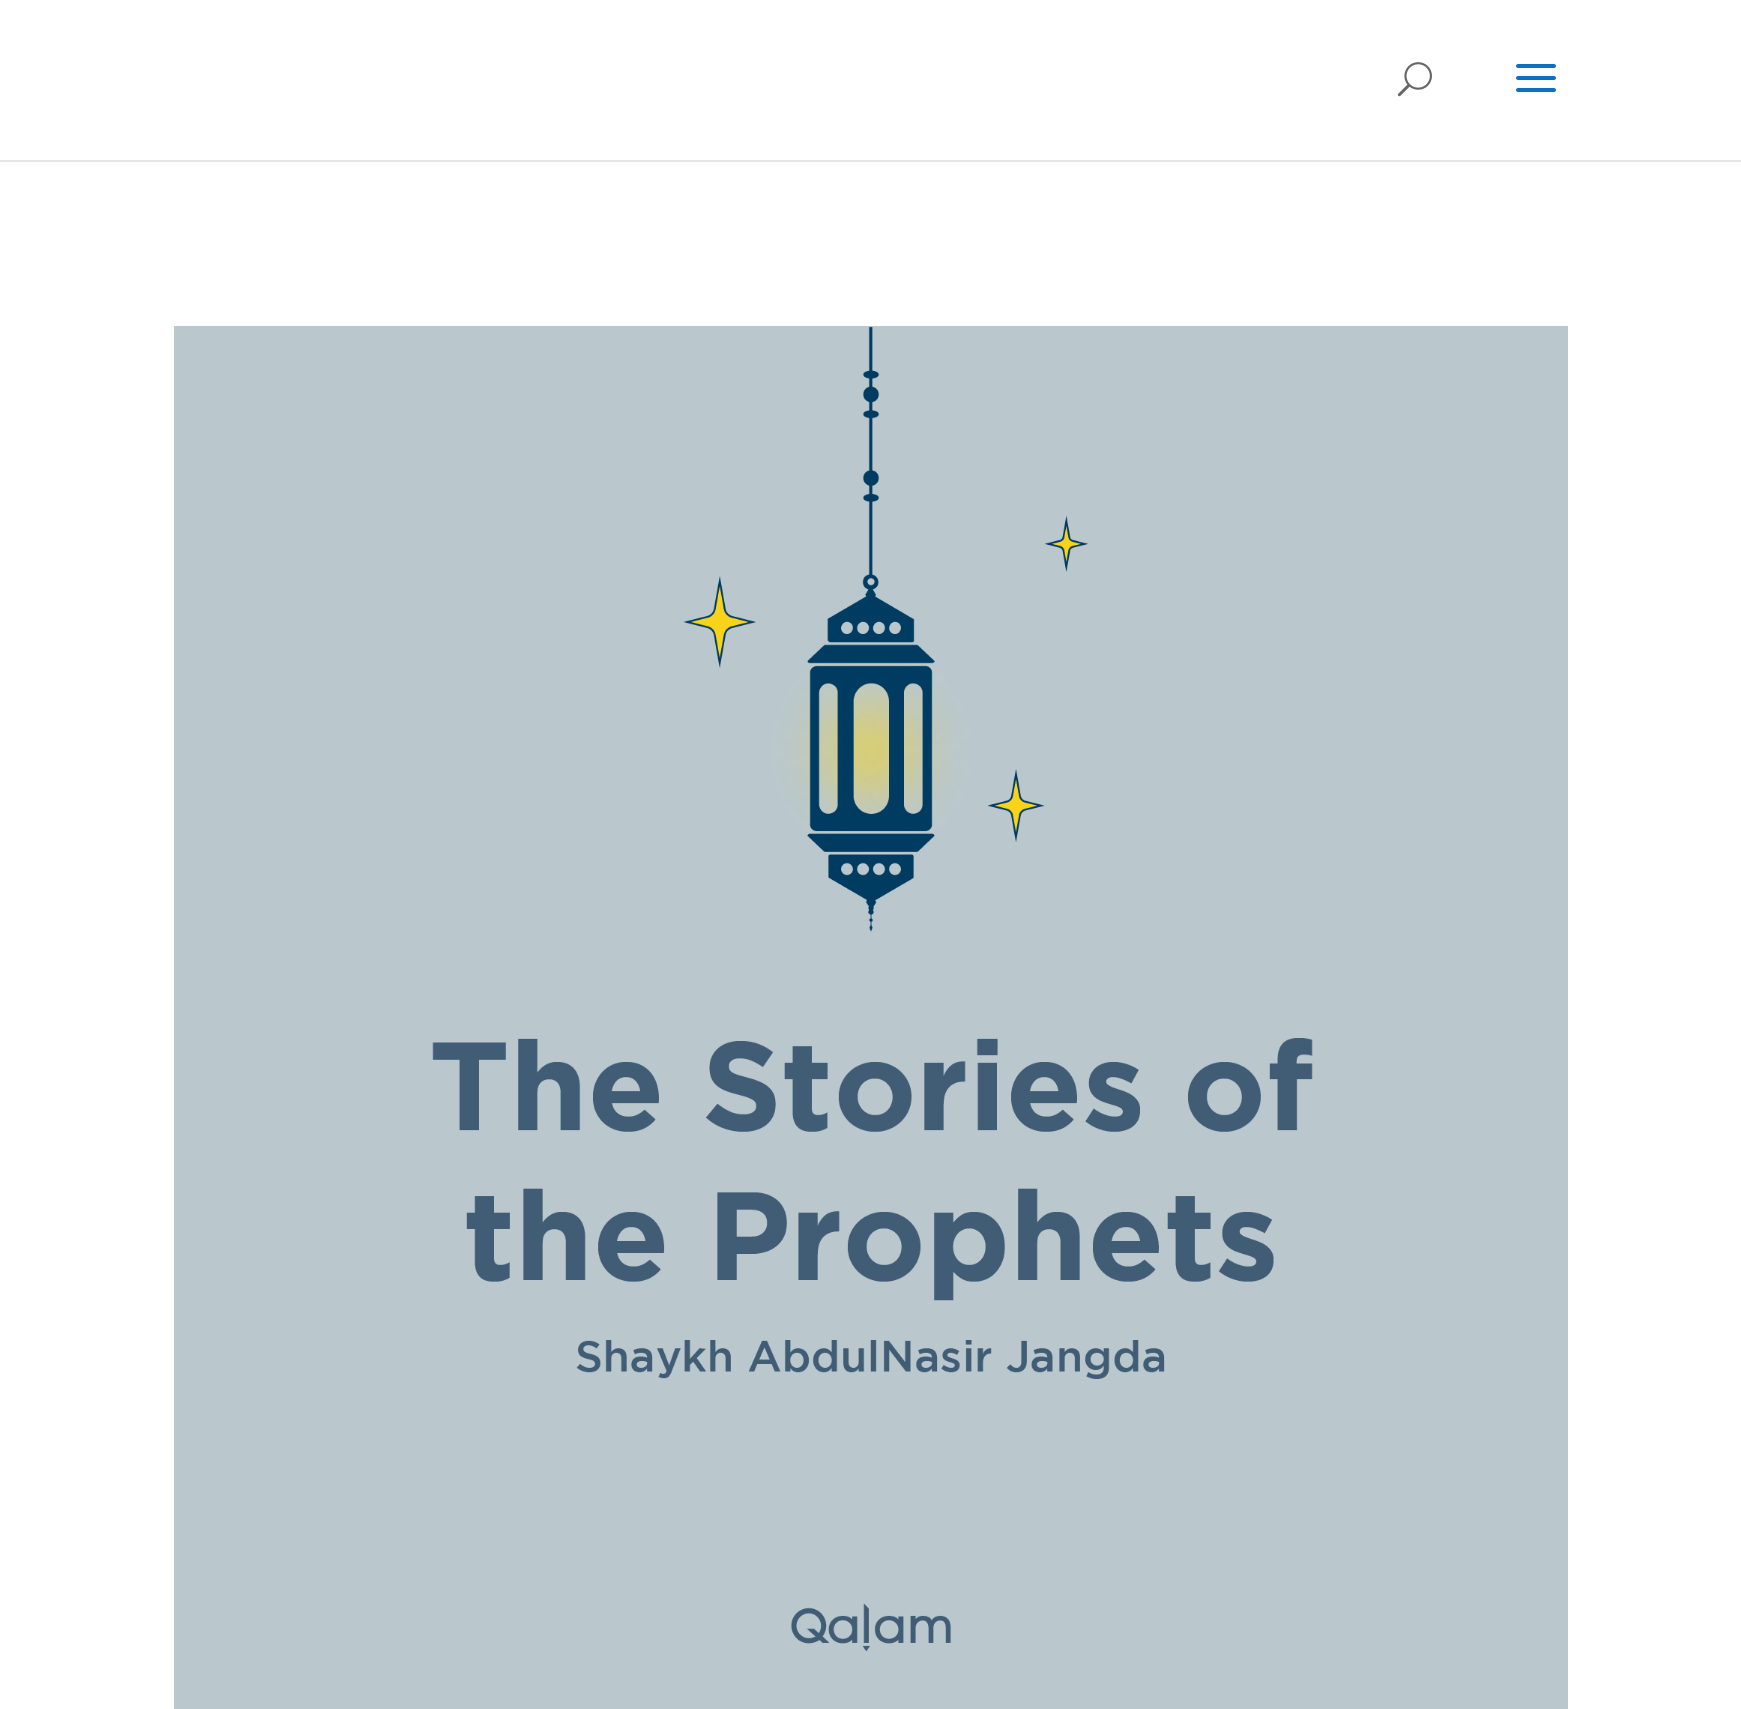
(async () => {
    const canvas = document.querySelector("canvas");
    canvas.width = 1741;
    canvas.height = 1709;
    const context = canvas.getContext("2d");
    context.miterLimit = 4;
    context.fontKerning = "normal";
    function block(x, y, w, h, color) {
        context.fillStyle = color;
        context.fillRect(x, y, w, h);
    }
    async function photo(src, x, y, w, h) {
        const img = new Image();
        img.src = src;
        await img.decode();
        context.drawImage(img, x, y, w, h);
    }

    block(0, 0, 1741, 1709, "rgb(255, 255, 255)");
    block(0, 160, 1741, 2, "rgb(230, 230, 230)");
    await photo("media/1.png", 1397, 62, 35, 35);
    await photo("media/2.png", 1516, 64, 40, 28);
    await photo("media/3.png", 174, 326, 1394, 1383);
})();
